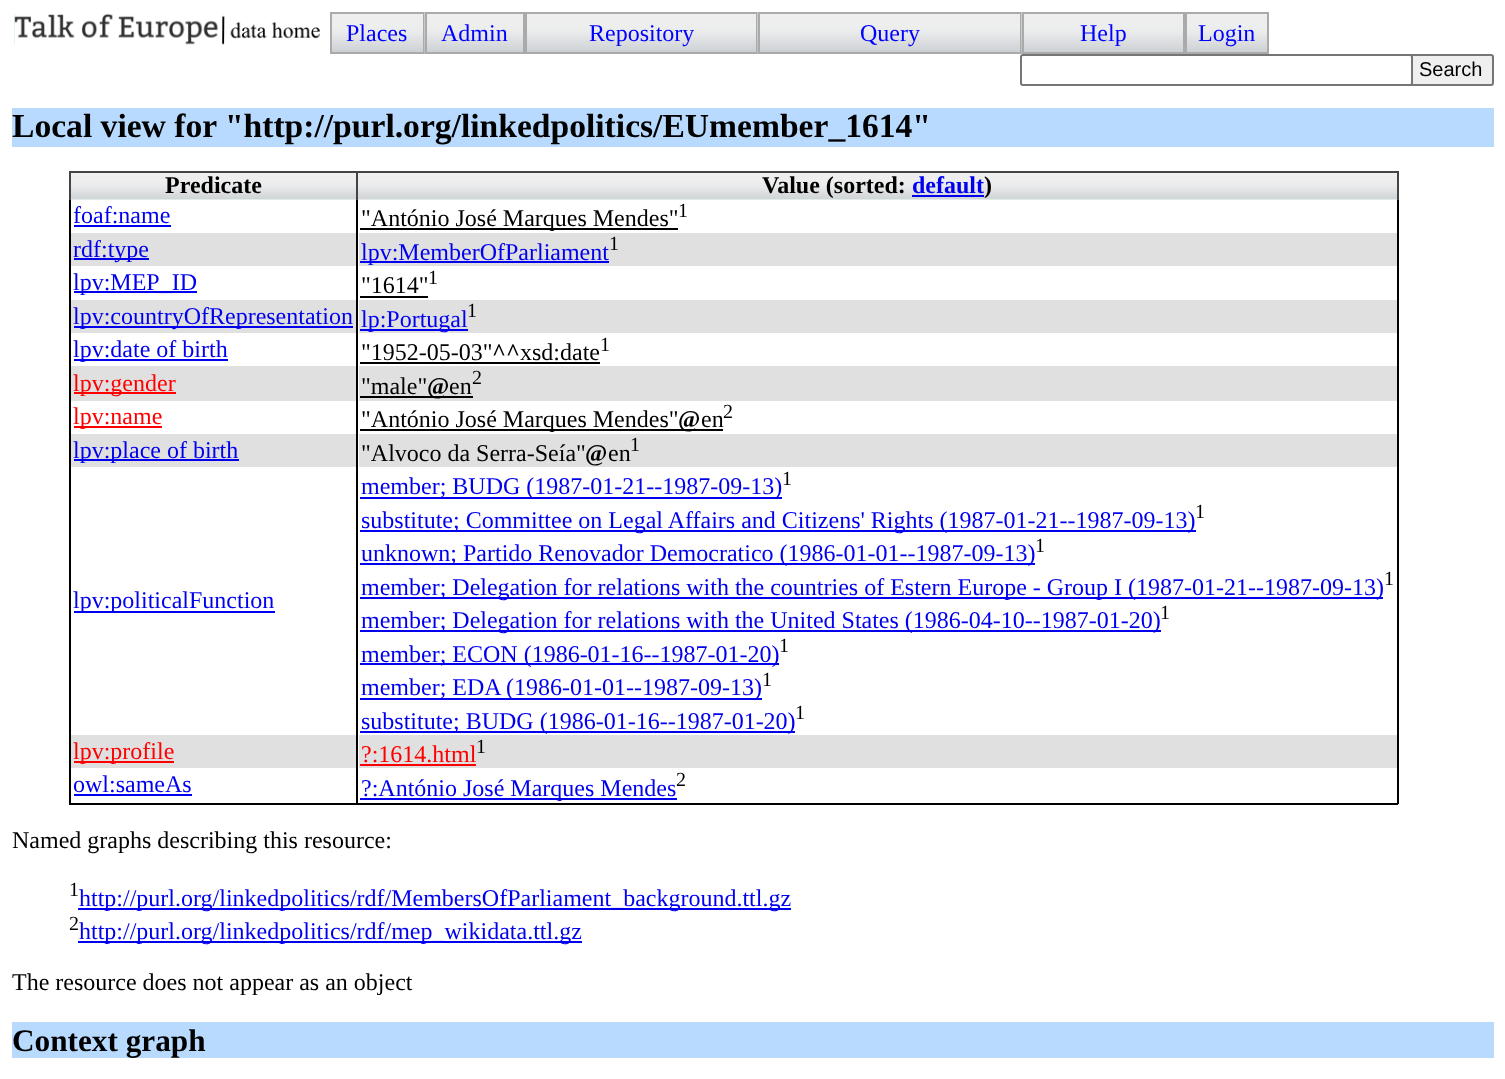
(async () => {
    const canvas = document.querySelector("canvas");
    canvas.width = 1505;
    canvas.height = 1079;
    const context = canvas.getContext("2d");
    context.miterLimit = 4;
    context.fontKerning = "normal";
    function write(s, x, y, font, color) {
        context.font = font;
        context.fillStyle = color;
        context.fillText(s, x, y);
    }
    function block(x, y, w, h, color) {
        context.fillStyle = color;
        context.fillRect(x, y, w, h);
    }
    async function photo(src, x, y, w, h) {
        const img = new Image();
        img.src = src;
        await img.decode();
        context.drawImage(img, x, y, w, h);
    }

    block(0, 0, 1505, 1079, "rgb(255, 255, 255)");
    await photo("media/1.png", 14, 13, 306, 32);
    await photo("media/2.png", 332, 14, 91, 38);
    context.strokeStyle = "rgb(170, 170, 170)";
    context.lineWidth = 2;
    context.strokeRect(331, 13, 93, 40);
    write("Places", 346, 41, "24px Liberation Serif", "rgb(0, 0, 255)");
    await photo("media/3.png", 424, 12, 99, 42);
    context.strokeRect(426, 13, 98, 40);
    write("Admin", 441, 41, "24px Liberation Serif", "rgb(0, 0, 255)");
    await photo("media/4.png", 527, 14, 229, 38);
    context.strokeRect(526, 13, 231, 40);
    write("Repository", 589, 41, "24px Liberation Serif", "rgb(0, 0, 255)");
    await photo("media/5.png", 757, 12, 263, 42);
    context.strokeRect(759, 13, 262, 40);
    write("Query", 860, 41, "24px Liberation Serif", "rgb(0, 0, 255)");
    await photo("media/6.png", 1021, 12, 162, 42);
    context.strokeRect(1023, 13, 161, 40);
    write("Help", 1080, 41, "24px Liberation Serif", "rgb(0, 0, 255)");
    await photo("media/7.png", 1187, 14, 80, 38);
    context.strokeRect(1186, 13, 82, 40);
    write("Login", 1198, 41, "24px Liberation Serif", "rgb(0, 0, 255)");
    context.fillStyle = "rgb(239, 239, 239)";
    context.beginPath();
    context.roundRect(1408, 55, 85, 30, 2);
    context.fill();
    context.strokeStyle = "rgb(118, 118, 118)";
    context.stroke();
    context.fillStyle = "rgb(255, 255, 255)";
    context.beginPath();
    context.roundRect(1021, 55, 391, 30, 2);
    context.fill();
    context.stroke();
    write("Search", 1419, 76, "20px Liberation Sans", "rgb(0, 0, 0)");
    block(12, 108, 1482, 39, "rgb(185, 218, 255)");
    write("Local view for \"http://purl.org/linkedpolitics/EUmember_1614\"", 12, 137, "bold 33.6px Liberation Serif", "rgb(0, 0, 0)");
    await photo("media/8.png", 71, 173, 285, 27);
    block(356, 171, 1042, 2, "rgb(68, 68, 68)");
    block(1397, 198, 2, 606, "rgb(0, 0, 0)");
    block(356, 803, 1042, 2, "rgb(0, 0, 0)");
    block(356, 198, 2, 606, "rgb(0, 0, 0)");
    block(356, 171, 2, 29, "rgb(68, 68, 68)");
    block(69, 171, 288, 2, "rgb(68, 68, 68)");
    block(69, 803, 288, 2, "rgb(0, 0, 0)");
    block(69, 198, 2, 606, "rgb(0, 0, 0)");
    block(69, 171, 2, 29, "rgb(68, 68, 68)");
    write("Predicate", 165, 193, "bold 24px Liberation Serif", "rgb(0, 0, 0)");
    await photo("media/9.png", 358, 173, 1039, 27);
    block(1397, 171, 2, 29, "rgb(68, 68, 68)");
    write("Value (sorted:", 762, 193, "bold 24px Liberation Serif", "rgb(0, 0, 0)");
    write("default", 912, 193, "bold 24px Liberation Serif", "rgb(0, 0, 238)");
    block(912, 195, 72, 2, "rgb(0, 0, 238)");
    write(")", 984, 193, "bold 24px Liberation Serif", "rgb(0, 0, 0)");
    write("foaf:name", 73, 223, "24px Liberation Serif", "rgb(0, 0, 238)");
    block(74, 225, 97, 2, "rgb(0, 0, 238)");
    block(360, 228, 318, 2, "rgb(0, 0, 0)");
    write("\"António José Marques Mendes\"", 361, 226, "24px Liberation Serif", "rgb(0, 0, 0)");
    write("1", 678, 217, "20px Liberation Serif", "rgb(0, 0, 0)");
    block(71, 233, 285, 33, "rgb(224, 224, 224)");
    block(74, 258, 75, 2, "rgb(0, 0, 238)");
    write("rdf:type", 73, 257, "24px Liberation Serif", "rgb(0, 0, 238)");
    block(359, 233, 1038, 33, "rgb(224, 224, 224)");
    block(360, 261, 249, 2, "rgb(0, 0, 238)");
    write("lpv:MemberOfParliament", 361, 260, "24px Liberation Serif", "rgb(0, 0, 238)");
    write("1", 609, 250, "20px Liberation Serif", "rgb(0, 0, 0)");
    block(74, 291, 123, 2, "rgb(0, 0, 238)");
    write("lpv:MEP_ID", 73, 290, "24px Liberation Serif", "rgb(0, 0, 238)");
    write("\"1614\"", 361, 293, "24px Liberation Serif", "rgb(0, 0, 0)");
    block(360, 296, 68, 2, "rgb(0, 0, 0)");
    write("1", 428, 284, "20px Liberation Serif", "rgb(0, 0, 0)");
    block(71, 300, 285, 33, "rgb(224, 224, 224)");
    block(74, 326, 279, 2, "rgb(0, 0, 238)");
    write("lpv:countryOfRepresentation", 73, 324, "24px Liberation Serif", "rgb(0, 0, 238)");
    block(359, 300, 1038, 33, "rgb(224, 224, 224)");
    block(360, 329, 108, 2, "rgb(0, 0, 238)");
    write("lp:Portugal", 361, 327, "24px Liberation Serif", "rgb(0, 0, 238)");
    write("1", 467, 317, "20px Liberation Serif", "rgb(0, 0, 0)");
    block(74, 359, 154, 2, "rgb(0, 0, 238)");
    write("lpv:date of birth", 73, 357, "24px Liberation Serif", "rgb(0, 0, 238)");
    write("\"1952-05-03\"", 361, 360, "24px Liberation Serif", "rgb(0, 0, 0)");
    block(360, 362, 240, 2, "rgb(0, 0, 0)");
    write("^^", 492, 360, "bold 24px Liberation Serif", "rgb(0, 0, 0)");
    write("xsd:date", 520, 360, "24px Liberation Serif", "rgb(0, 0, 0)");
    write("1", 600, 351, "20px Liberation Serif", "rgb(0, 0, 0)");
    block(71, 366, 285, 35, "rgb(224, 224, 224)");
    block(74, 392, 102, 2, "rgb(255, 0, 0)");
    write("lpv:gender", 73, 391, "24px Liberation Serif", "rgb(255, 0, 0)");
    block(359, 366, 1038, 35, "rgb(224, 224, 224)");
    write("\"male\"", 361, 394, "24px Liberation Serif", "rgb(0, 0, 0)");
    block(360, 396, 113, 2, "rgb(0, 0, 0)");
    write("@", 427, 394, "bold 24px Liberation Serif", "rgb(0, 0, 0)");
    write("en", 449, 394, "24px Liberation Serif", "rgb(0, 0, 0)");
    write("2", 472, 384, "20px Liberation Serif", "rgb(0, 0, 0)");
    block(74, 426, 88, 2, "rgb(255, 0, 0)");
    write("lpv:name", 73, 424, "24px Liberation Serif", "rgb(255, 0, 0)");
    block(360, 429, 363, 2, "rgb(0, 0, 0)");
    write("\"António José Marques Mendes\"", 361, 427, "24px Liberation Serif", "rgb(0, 0, 0)");
    write("@", 678, 427, "bold 24px Liberation Serif", "rgb(0, 0, 0)");
    write("en", 701, 427, "24px Liberation Serif", "rgb(0, 0, 0)");
    write("2", 723, 418, "20px Liberation Serif", "rgb(0, 0, 0)");
    block(71, 434, 285, 33, "rgb(224, 224, 224)");
    block(74, 459, 165, 2, "rgb(0, 0, 238)");
    write("lpv:place of birth", 73, 458, "24px Liberation Serif", "rgb(0, 0, 238)");
    block(359, 434, 1038, 33, "rgb(224, 224, 224)");
    write("\"Alvoco da Serra-Seía\"", 361, 461, "24px Liberation Serif", "rgb(0, 0, 0)");
    write("@", 585, 461, "bold 24px Liberation Serif", "rgb(0, 0, 0)");
    write("en", 608, 461, "24px Liberation Serif", "rgb(0, 0, 0)");
    write("1", 630, 451, "20px Liberation Serif", "rgb(0, 0, 0)");
    block(74, 611, 201, 2, "rgb(0, 0, 238)");
    write("lpv:politicalFunction", 73, 608, "24px Liberation Serif", "rgb(0, 0, 238)");
    block(360, 497, 422, 2, "rgb(0, 0, 238)");
    write("member; BUDG (1987-01-21--1987-09-13)", 361, 494, "24px Liberation Serif", "rgb(0, 0, 238)");
    write("1", 782, 485, "20px Liberation Serif", "rgb(0, 0, 0)");
    block(360, 530, 836, 2, "rgb(0, 0, 238)");
    write("substitute; Committee on Legal Affairs and Citizens' Rights (1987-01-21--1987-09-13)", 361, 528, "24px Liberation Serif", "rgb(0, 0, 238)");
    write("1", 1195, 518, "20px Liberation Serif", "rgb(0, 0, 0)");
    block(360, 563, 675, 2, "rgb(0, 0, 238)");
    write("unknown; Partido Renovador Democratico (1986-01-01--1987-09-13)", 361, 561, "24px Liberation Serif", "rgb(0, 0, 238)");
    write("1", 1035, 552, "20px Liberation Serif", "rgb(0, 0, 0)");
    block(360, 597, 1023, 2, "rgb(0, 0, 238)");
    write("member; Delegation for relations with the countries of Estern Europe - Group I (1987-01-21--1987-09-13)", 361, 595, "24px Liberation Serif", "rgb(0, 0, 238)");
    write("1", 1384, 585, "20px Liberation Serif", "rgb(0, 0, 0)");
    block(360, 630, 801, 2, "rgb(0, 0, 238)");
    write("member; Delegation for relations with the United States (1986-04-10--1987-01-20)", 361, 628, "24px Liberation Serif", "rgb(0, 0, 238)");
    write("1", 1160, 619, "20px Liberation Serif", "rgb(0, 0, 0)");
    block(360, 663, 419, 2, "rgb(0, 0, 238)");
    write("member; ECON (1986-01-16--1987-01-20)", 361, 662, "24px Liberation Serif", "rgb(0, 0, 238)");
    write("1", 779, 652, "20px Liberation Serif", "rgb(0, 0, 0)");
    block(360, 698, 140, 2, "rgb(0, 0, 238)");
    write("member; EDA", 361, 695, "24px Liberation Serif", "rgb(0, 0, 238)");
    block(500, 698, 262, 2, "rgb(0, 0, 238)");
    write("(1986-01-01--1987-09-13)", 506, 695, "24px Liberation Serif", "rgb(0, 0, 238)");
    write("1", 762, 686, "20px Liberation Serif", "rgb(0, 0, 0)");
    block(360, 731, 435, 2, "rgb(0, 0, 238)");
    write("substitute; BUDG (1986-01-16--1987-01-20)", 361, 729, "24px Liberation Serif", "rgb(0, 0, 238)");
    write("1", 795, 719, "20px Liberation Serif", "rgb(0, 0, 0)");
    block(71, 735, 285, 33, "rgb(224, 224, 224)");
    block(74, 761, 100, 2, "rgb(255, 0, 0)");
    write("lpv:profile", 73, 759, "24px Liberation Serif", "rgb(255, 0, 0)");
    block(359, 735, 1038, 33, "rgb(224, 224, 224)");
    write("?:1614.html", 361, 762, "24px Liberation Serif", "rgb(255, 0, 0)");
    block(360, 764, 116, 2, "rgb(255, 0, 0)");
    write("1", 476, 753, "20px Liberation Serif", "rgb(0, 0, 0)");
    write("owl:sameAs", 73, 792, "24px Liberation Serif", "rgb(0, 0, 238)");
    block(74, 794, 118, 2, "rgb(0, 0, 238)");
    block(360, 798, 317, 2, "rgb(0, 0, 238)");
    write("?:António José Marques Mendes", 361, 796, "24px Liberation Serif", "rgb(0, 0, 238)");
    write("2", 676, 786, "20px Liberation Serif", "rgb(0, 0, 0)");
    write("Named graphs describing this resource:", 12, 848, "24px Liberation Serif", "rgb(0, 0, 0)");
    write("1", 69, 896, "20px Liberation Serif", "rgb(0, 0, 0)");
    block(78, 908, 713, 2, "rgb(0, 0, 238)");
    write("http://purl.org/linkedpolitics/rdf/MembersOfParliament_background.ttl.gz", 79, 906, "24px Liberation Serif", "rgb(0, 0, 238)");
    write("2", 69, 930, "20px Liberation Serif", "rgb(0, 0, 0)");
    block(78, 941, 504, 2, "rgb(0, 0, 238)");
    write("http://purl.org/linkedpolitics/rdf/mep_wikidata.ttl.gz", 79, 939, "24px Liberation Serif", "rgb(0, 0, 238)");
    write("The resource does not appear as an object", 12, 990, "24px Liberation Serif", "rgb(0, 0, 0)");
    block(12, 1022, 1482, 36, "rgb(185, 218, 255)");
    write("Context graph", 12, 1051, "bold 31.25px Liberation Serif", "rgb(0, 0, 0)");
})();
